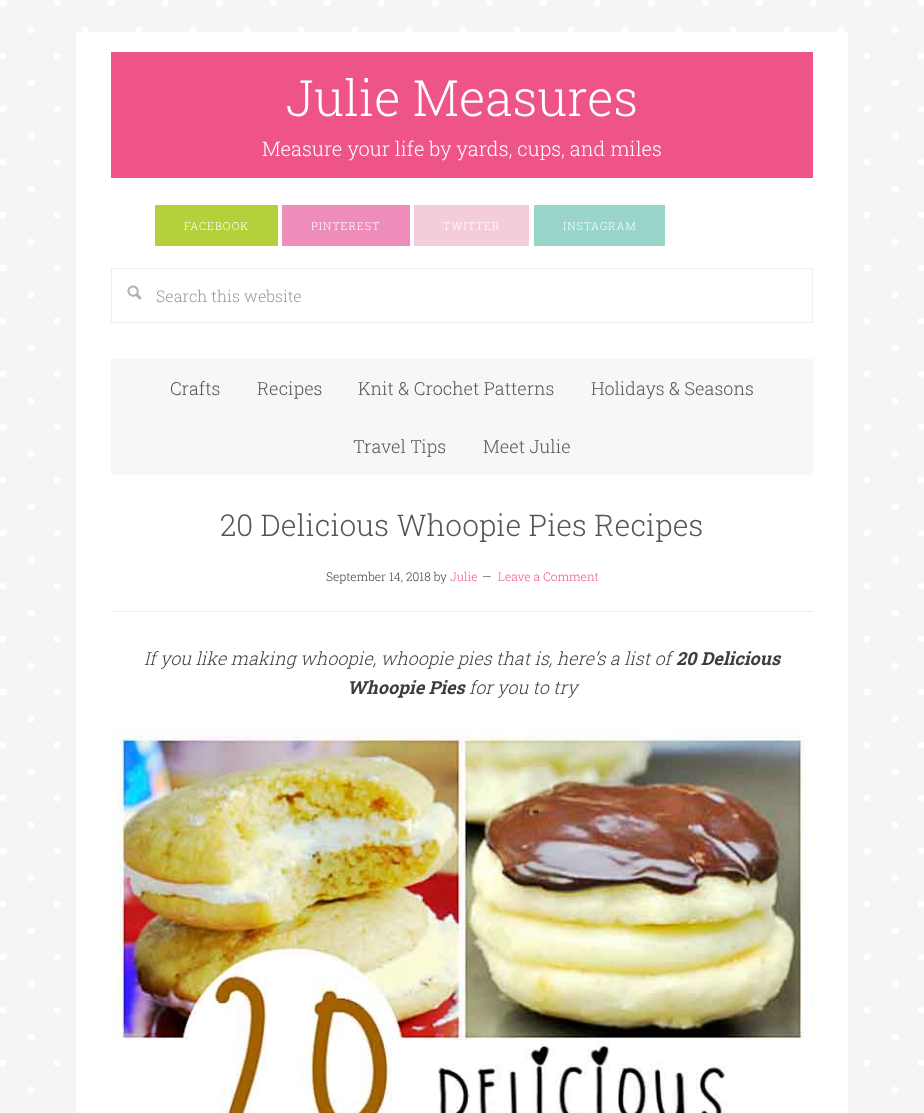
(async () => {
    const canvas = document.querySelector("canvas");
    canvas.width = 924;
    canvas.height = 1113;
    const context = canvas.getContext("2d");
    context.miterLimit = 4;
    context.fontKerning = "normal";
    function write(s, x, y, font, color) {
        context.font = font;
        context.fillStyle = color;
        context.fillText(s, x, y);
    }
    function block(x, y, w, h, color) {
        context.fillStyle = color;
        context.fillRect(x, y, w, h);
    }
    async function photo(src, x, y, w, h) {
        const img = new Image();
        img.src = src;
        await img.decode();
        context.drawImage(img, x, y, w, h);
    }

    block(0, 0, 924, 1113, "rgb(255, 255, 255)");
    await photo("media/1.png", 0, 0, 924, 1113);
    block(76, 32, 772, 1081, "rgb(255, 255, 255)");
    block(111, 52, 702, 126, "rgb(239, 84, 136)");
    write("Julie Measures", 286, 116, "300 50px Roboto Slab", "rgb(255, 255, 255)");
    write("Measure your life by yards, cups, and miles", 262, 156, "300 20px Roboto Slab", "rgb(255, 255, 255)");
    block(155, 205, 123, 41, "rgb(180, 209, 59)");
    context.letterSpacing = "1px";
    write("FACEBOOK", 184, 230, "300 11px Roboto Slab", "rgb(255, 255, 255)");
    block(282, 205, 128, 41, "rgb(238, 141, 186)");
    write("PINTEREST", 311, 230, "300 11px Roboto Slab", "rgb(255, 255, 255)");
    block(414, 205, 115, 41, "rgb(245, 205, 218)");
    write("TWITTER", 443, 230, "300 11px Roboto Slab", "rgb(255, 255, 255)");
    block(534, 205, 131, 41, "rgb(154, 213, 202)");
    write("INSTAGRAM", 563, 230, "300 11px Roboto Slab", "rgb(255, 255, 255)");
    await photo("media/2.png", 127, 285, 15, 15);
    context.strokeStyle = "rgb(238, 238, 238)";
    context.strokeRect(111.5, 268.5, 701, 54);
    context.letterSpacing = "0px";
    write("Search this website", 156, 302, "300 16px Roboto Slab", "rgb(153, 153, 153)");
    block(111, 359, 702, 116, "rgb(247, 247, 247)");
    write("Crafts", 170, 395, "300 18px Roboto Slab", "rgb(85, 85, 85)");
    write("Recipes", 257, 395, "300 18px Roboto Slab", "rgb(85, 85, 85)");
    write("Knit & Crochet Patterns", 358, 395, "300 18px Roboto Slab", "rgb(85, 85, 85)");
    write("Holidays & Seasons", 591, 395, "300 18px Roboto Slab", "rgb(85, 85, 85)");
    write("Travel Tips", 353, 453, "300 18px Roboto Slab", "rgb(85, 85, 85)");
    write("Meet Julie", 483, 453, "300 18px Roboto Slab", "rgb(85, 85, 85)");
    block(111, 611, 702, 1, "rgb(238, 238, 238)");
    write("20 Delicious Whoopie Pies Recipes", 220, 536, "300 30px Roboto Slab", "rgb(85, 85, 85)");
    write("September 14, 2018 by", 326, 581, "300 12px Roboto Slab", "rgb(61, 61, 61)");
    write("Julie", 450, 581, "300 12px Roboto Slab", "rgb(239, 84, 136)");
    write("—", 482, 581, "300 12px Roboto Slab", "rgb(61, 61, 61)");
    write("Leave a Comment", 498, 581, "300 12px Roboto Slab", "rgb(239, 84, 136)");
    write("If you like making whoopie, whoopie pies that is, here’s a list of", 144, 665, "italic 300 18px Roboto Slab", "rgb(61, 61, 61)");
    write("20 Delicious", 676, 665, "italic bold 18px Roboto Slab", "rgb(61, 61, 61)");
    write("Whoopie Pies", 347, 694, "italic bold 18px Roboto Slab", "rgb(61, 61, 61)");
    write("for you to try", 469, 694, "italic 300 18px Roboto Slab", "rgb(61, 61, 61)");
    await photo("media/3.png", 111, 728, 702, 385);
})();
